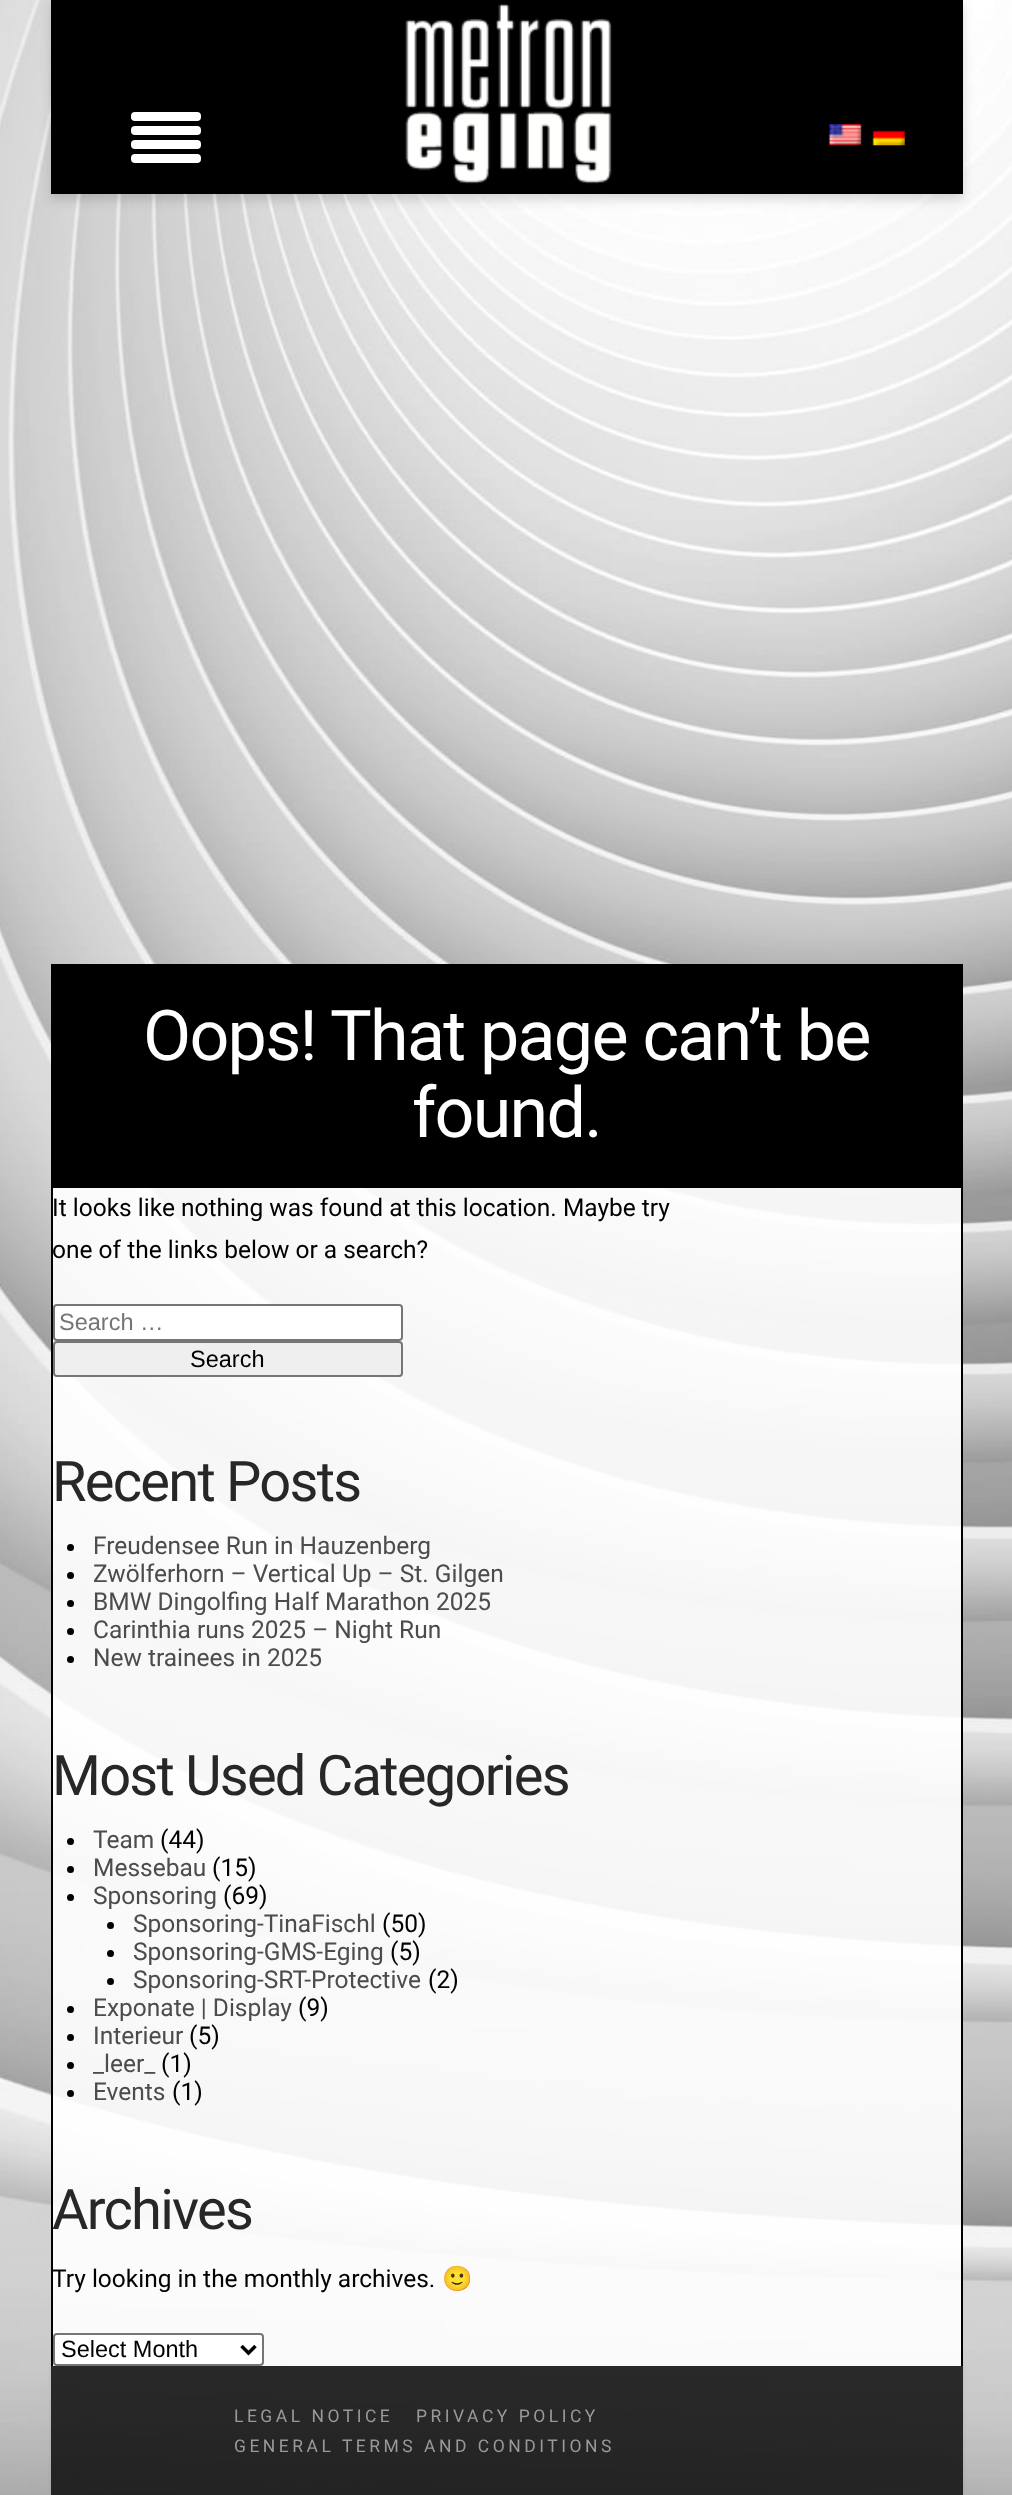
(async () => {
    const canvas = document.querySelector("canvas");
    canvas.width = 1012;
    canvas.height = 2495;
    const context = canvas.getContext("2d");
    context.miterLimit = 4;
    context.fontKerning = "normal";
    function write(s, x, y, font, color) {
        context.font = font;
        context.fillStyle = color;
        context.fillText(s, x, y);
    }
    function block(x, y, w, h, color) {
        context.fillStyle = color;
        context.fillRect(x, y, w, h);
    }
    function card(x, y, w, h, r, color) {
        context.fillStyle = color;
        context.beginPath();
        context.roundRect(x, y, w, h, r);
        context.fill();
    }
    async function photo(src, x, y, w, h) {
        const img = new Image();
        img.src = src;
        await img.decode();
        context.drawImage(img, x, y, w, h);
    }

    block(0, 0, 1012, 2495, "rgb(255, 255, 255)");
    await photo("media/1.png", 0, 0, 1012, 2495);
    context.fillStyle = "rgba(0, 0, 0, 0.14)";
    context.filter = "blur(5.5px)";
    context.beginPath();
    context.rect(51, 5, 912, 195);
    context.fill();
    context.filter = "none";
    block(51, 0, 912, 194, "rgb(0, 0, 0)");
    await photo("media/2.png", 405, 3, 207, 181);
    card(131, 112, 70, 9, 4, "rgb(255, 255, 255)");
    card(131, 126, 70, 9, 4, "rgb(255, 255, 255)");
    card(131, 140, 70, 9, 4, "rgb(255, 255, 255)");
    card(131, 154, 70, 9, 4, "rgb(255, 255, 255)");
    await photo("media/3.png", 828, 124, 34, 22);
    await photo("media/4.png", 872, 130, 33, 16);
    block(51, 964, 912, 224, "rgb(0, 0, 0)");
    context.letterSpacing = "-1.75px";
    write("Oops! That page can’t be", 143, 1060, "70px Roboto", "rgb(255, 255, 255)");
    write("found.", 412, 1137, "70px Roboto", "rgb(255, 255, 255)");
    context.save();
    context.beginPath();
    context.moveTo(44, 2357);
    context.lineTo(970, 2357);
    context.lineTo(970, 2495);
    context.lineTo(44, 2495);
    context.closePath();
    context.moveTo(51, 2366);
    context.lineTo(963, 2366);
    context.lineTo(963, 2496);
    context.lineTo(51, 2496);
    context.closePath();
    context.clip("evenodd");
    context.fillStyle = "rgba(0, 0, 0, 0.08)";
    context.filter = "blur(2px)";
    context.beginPath();
    context.rect(51, 2364, 912, 130);
    context.fill();
    context.filter = "none";
    context.restore();
    block(53, 1188, 908, 1178, "rgba(255, 255, 255, 0.9)");
    block(961, 1188, 2, 1178, "rgb(0, 0, 0)");
    block(51, 1188, 2, 1178, "rgb(0, 0, 0)");
    context.letterSpacing = "0px";
    write("It looks like nothing was found at this location. Maybe try", 52, 1216, "24.5px Roboto", "rgb(0, 0, 0)");
    write("one of the links below or a search?", 52, 1258, "24.5px Roboto", "rgb(0, 0, 0)");
    context.fillStyle = "rgb(255, 255, 255)";
    context.beginPath();
    context.roundRect(54, 1305, 348, 35, 3);
    context.fill();
    context.strokeStyle = "rgb(118, 118, 118)";
    context.lineWidth = 2;
    context.stroke();
    write("Search …", 59, 1330, "23.5px Liberation Sans", "rgb(117, 117, 117)");
    context.fillStyle = "rgb(239, 239, 239)";
    context.beginPath();
    context.roundRect(54, 1342, 348, 34, 3);
    context.fill();
    context.stroke();
    write("Search", 190, 1367, "23.5px Liberation Sans", "rgb(0, 0, 0)");
    context.letterSpacing = "-1.75px";
    write("Recent Posts", 52, 1501, "56px Roboto", "rgb(39, 39, 39)");
    context.fillStyle = "rgb(0, 0, 0)";
    context.beginPath();
    context.arc(70.5, 1547.5, 3.5, 0, Math.PI * 2);
    context.fill();
    context.letterSpacing = "0px";
    write("Freudensee Run in Hauzenberg", 93, 1554, "24.5px Roboto", "rgb(76, 76, 76)");
    context.fillStyle = "rgb(0, 0, 0)";
    context.beginPath();
    context.arc(70.5, 1575.5, 3.5, 0, Math.PI * 2);
    context.fill();
    write("Zwölferhorn – Vertical Up – St. Gilgen", 93, 1582, "24.5px Roboto", "rgb(76, 76, 76)");
    context.fillStyle = "rgb(0, 0, 0)";
    context.beginPath();
    context.arc(70.5, 1603.5, 3.5, 0, Math.PI * 2);
    context.fill();
    write("BMW Dingolfing Half Marathon 2025", 93, 1610, "24.5px Roboto", "rgb(76, 76, 76)");
    context.fillStyle = "rgb(0, 0, 0)";
    context.beginPath();
    context.arc(70.5, 1631.5, 3.5, 0, Math.PI * 2);
    context.fill();
    write("Carinthia runs 2025 – Night Run", 93, 1638, "24.5px Roboto", "rgb(76, 76, 76)");
    context.fillStyle = "rgb(0, 0, 0)";
    context.beginPath();
    context.arc(70.5, 1659.5, 3.5, 0, Math.PI * 2);
    context.fill();
    write("New trainees in 2025", 93, 1666, "24.5px Roboto", "rgb(76, 76, 76)");
    context.letterSpacing = "-1.75px";
    write("Most Used Categories", 52, 1795, "56px Roboto", "rgb(39, 39, 39)");
    context.fillStyle = "rgb(0, 0, 0)";
    context.beginPath();
    context.arc(70.5, 1841.5, 3.5, 0, Math.PI * 2);
    context.fill();
    context.letterSpacing = "0px";
    write("Team", 93, 1848, "24.5px Roboto", "rgb(76, 76, 76)");
    write("(44)", 160, 1848, "24.5px Roboto", "rgb(0, 0, 0)");
    context.beginPath();
    context.arc(70.5, 1869.5, 3.5, 0, Math.PI * 2);
    context.fill();
    write("Messebau", 93, 1876, "24.5px Roboto", "rgb(76, 76, 76)");
    write("(15)", 212, 1876, "24.5px Roboto", "rgb(0, 0, 0)");
    context.beginPath();
    context.arc(70.5, 1897.5, 3.5, 0, Math.PI * 2);
    context.fill();
    write("Sponsoring", 93, 1904, "24.5px Roboto", "rgb(76, 76, 76)");
    write("(69)", 223, 1904, "24.5px Roboto", "rgb(0, 0, 0)");
    context.beginPath();
    context.arc(110.5, 1925.5, 3.5, 0, Math.PI * 2);
    context.fill();
    write("Sponsoring-TinaFischl", 133, 1932, "24.5px Roboto", "rgb(76, 76, 76)");
    write("(50)", 382, 1932, "24.5px Roboto", "rgb(0, 0, 0)");
    context.beginPath();
    context.arc(110.5, 1953.5, 3.5, 0, Math.PI * 2);
    context.fill();
    write("Sponsoring-GMS-Eging", 133, 1960, "24.5px Roboto", "rgb(76, 76, 76)");
    write("(5)", 390, 1960, "24.5px Roboto", "rgb(0, 0, 0)");
    context.beginPath();
    context.arc(110.5, 1981.5, 3.5, 0, Math.PI * 2);
    context.fill();
    write("Sponsoring-SRT-Protective", 133, 1988, "24.5px Roboto", "rgb(76, 76, 76)");
    write("(2)", 428, 1988, "24.5px Roboto", "rgb(0, 0, 0)");
    context.beginPath();
    context.arc(70.5, 2009.5, 3.5, 0, Math.PI * 2);
    context.fill();
    write("Exponate | Display", 93, 2016, "24.5px Roboto", "rgb(76, 76, 76)");
    write("(9)", 298, 2016, "24.5px Roboto", "rgb(0, 0, 0)");
    context.beginPath();
    context.arc(70.5, 2037.5, 3.5, 0, Math.PI * 2);
    context.fill();
    write("Interieur", 93, 2044, "24.5px Roboto", "rgb(76, 76, 76)");
    write("(5)", 189, 2044, "24.5px Roboto", "rgb(0, 0, 0)");
    context.beginPath();
    context.arc(70.5, 2065.5, 3.5, 0, Math.PI * 2);
    context.fill();
    write("_leer_", 93, 2072, "24.5px Roboto", "rgb(76, 76, 76)");
    write("(1)", 161, 2072, "24.5px Roboto", "rgb(0, 0, 0)");
    context.beginPath();
    context.arc(70.5, 2093.5, 3.5, 0, Math.PI * 2);
    context.fill();
    write("Events", 93, 2100, "24.5px Roboto", "rgb(76, 76, 76)");
    write("(1)", 172, 2100, "24.5px Roboto", "rgb(0, 0, 0)");
    context.letterSpacing = "-1.75px";
    write("Archives", 52, 2229, "56px Roboto", "rgb(39, 39, 39)");
    context.letterSpacing = "0px";
    write("Try looking in the monthly archives.", 52, 2287, "24.5px Roboto", "rgb(0, 0, 0)");
    write("🙂", 442, 2287, "24.5px Noto Color Emoji", "rgb(0, 0, 0)");
    context.fillStyle = "rgb(255, 255, 255)";
    context.beginPath();
    context.roundRect(54, 2334, 209, 31, 3);
    context.fill();
    context.stroke();
    context.beginPath();
    context.moveTo(241.5, 2346);
    context.lineTo(248.5, 2353);
    context.lineTo(255.5, 2346);
    context.strokeStyle = "rgb(0, 0, 0)";
    context.lineWidth = 3.5;
    context.stroke();
    write("Select Month", 61, 2357, "23.5px Liberation Sans", "rgb(0, 0, 0)");
    block(51, 2366, 912, 129, "rgba(0, 0, 0, 0.8)");
    context.letterSpacing = "3.5px";
    write("LEGAL NOTICE", 234, 2422, "17.5px Roboto", "rgb(153, 153, 153)");
    write("PRIVACY POLICY", 416, 2422, "17.5px Roboto", "rgb(153, 153, 153)");
    write("GENERAL TERMS AND CONDITIONS", 234, 2452, "17.5px Roboto", "rgb(153, 153, 153)");
})();
